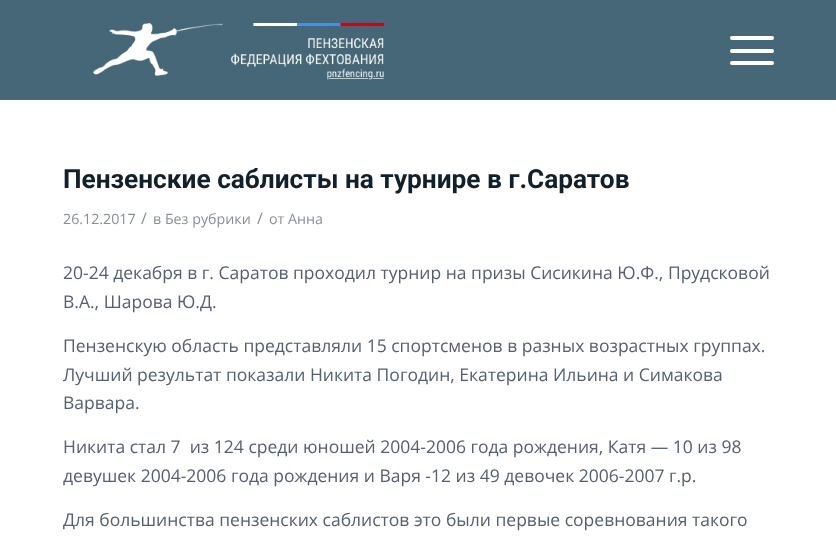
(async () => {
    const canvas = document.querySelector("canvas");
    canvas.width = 836;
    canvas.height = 545;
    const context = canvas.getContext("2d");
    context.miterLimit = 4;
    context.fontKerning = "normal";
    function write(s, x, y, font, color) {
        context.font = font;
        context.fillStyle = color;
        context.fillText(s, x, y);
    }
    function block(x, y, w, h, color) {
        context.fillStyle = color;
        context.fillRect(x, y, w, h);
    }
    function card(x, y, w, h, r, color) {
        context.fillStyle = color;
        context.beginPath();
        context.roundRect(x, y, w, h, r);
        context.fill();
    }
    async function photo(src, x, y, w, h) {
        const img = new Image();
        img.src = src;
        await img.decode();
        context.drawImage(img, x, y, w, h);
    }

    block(0, 0, 836, 545, "rgb(255, 255, 255)");
    block(0, 0, 836, 100, "rgb(69, 103, 120)");
    await photo("media/1.png", 92, 15, 299, 65);
    card(730, 49, 44, 4, 2, "rgb(255, 255, 255)");
    card(730, 36, 44, 4, 2, "rgb(255, 255, 255)");
    card(730, 61, 44, 4, 2, "rgb(255, 255, 255)");
    write("Пензенские саблисты на турнире в г.Саратов", 63, 188, "bold 26.25px Roboto", "rgb(17, 32, 42)");
    write("26.12.2017", 63, 224, "14.25px Open Sans", "rgb(136, 144, 149)");
    write("/", 141, 224, "16px Open Sans", "rgb(136, 144, 149)");
    write("в Без рубрики", 153, 224, "14.25px Open Sans", "rgb(136, 144, 149)");
    write("/", 257, 224, "16px Open Sans", "rgb(136, 144, 149)");
    write("от Анна", 269, 224, "14.25px Open Sans", "rgb(136, 144, 149)");
    write("20-24 декабря в г. Саратов проходил турнир на призы Сисикина Ю.Ф., Прудсковой", 63, 279, "17.5px Open Sans", "rgb(85, 96, 110)");
    write("В.А., Шарова Ю.Д.", 63, 308, "17.5px Open Sans", "rgb(85, 96, 110)");
    write("Пензенскую область представляли 15 спортсменов в разных возрастных группах.", 63, 352, "17.5px Open Sans", "rgb(85, 96, 110)");
    write("Лучший результат показали Никита Погодин, Екатерина Ильина и Симакова", 63, 381, "17.5px Open Sans", "rgb(85, 96, 110)");
    write("Варвара.", 63, 409, "17.5px Open Sans", "rgb(85, 96, 110)");
    write("Никита стал 7  из 124 среди юношей 2004-2006 года рождения, Катя — 10 из 98", 63, 453, "17.5px Open Sans", "rgb(85, 96, 110)");
    write("девушек 2004-2006 года рождения и Варя -12 из 49 девочек 2006-2007 г.р.", 63, 482, "17.5px Open Sans", "rgb(85, 96, 110)");
    context.save();
    context.beginPath();
    context.rect(63, 163, 711, 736);
    context.clip();
    write("Для большинства пензенских саблистов это были первые соревнования такого", 63, 526, "17.5px Open Sans", "rgb(85, 96, 110)");
    context.restore();
})();
